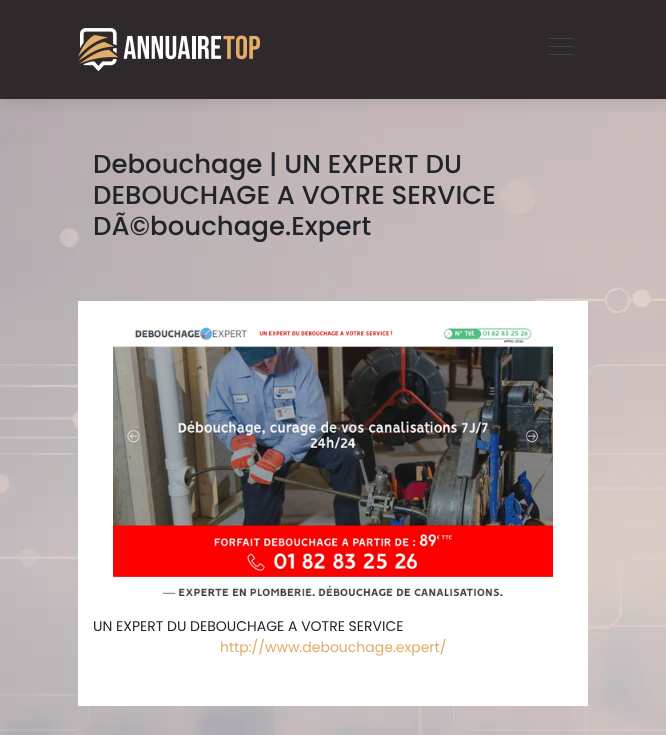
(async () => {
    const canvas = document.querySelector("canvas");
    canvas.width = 666;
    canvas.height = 735;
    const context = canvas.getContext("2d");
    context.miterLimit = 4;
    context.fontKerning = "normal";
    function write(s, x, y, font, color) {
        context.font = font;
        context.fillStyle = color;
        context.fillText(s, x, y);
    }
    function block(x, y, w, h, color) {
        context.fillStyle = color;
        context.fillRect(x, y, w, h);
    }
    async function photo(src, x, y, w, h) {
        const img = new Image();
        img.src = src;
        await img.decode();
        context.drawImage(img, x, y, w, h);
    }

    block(0, 0, 666, 735, "rgb(255, 255, 255)");
    await photo("media/1.png", 0, 99, 666, 636);
    context.fillStyle = "rgba(0, 0, 0, 0.1)";
    context.filter = "blur(6.5px)";
    context.beginPath();
    context.rect(0, 2, 666, 99);
    context.fill();
    context.filter = "none";
    block(0, 0, 666, 99, "rgb(48, 41, 43)");
    await photo("media/2.png", 78, 28, 182, 43);
    block(549, 38, 24, 1, "rgb(68, 68, 68)");
    block(549, 46, 24, 1, "rgb(68, 68, 68)");
    block(549, 54, 24, 1, "rgb(68, 68, 68)");
    write("Debouchage | UN EXPERT DU", 93, 173, "500 26px Poppins", "rgb(33, 37, 41)");
    write("DEBOUCHAGE A VOTRE SERVICE", 93, 204, "500 26px Poppins", "rgb(33, 37, 41)");
    write("DÃ©bouchage.Expert", 93, 235, "500 26px Poppins", "rgb(33, 37, 41)");
    block(78, 301, 510, 405, "rgb(255, 255, 255)");
    await photo("media/3.png", 113, 326, 440, 270);
    write("UN EXPERT DU DEBOUCHAGE A VOTRE SERVICE", 93, 631, "14px Poppins", "rgb(33, 37, 41)");
    write("http://www.debouchage.expert/", 220, 652, "14px Poppins", "rgb(226, 174, 105)");
})();
